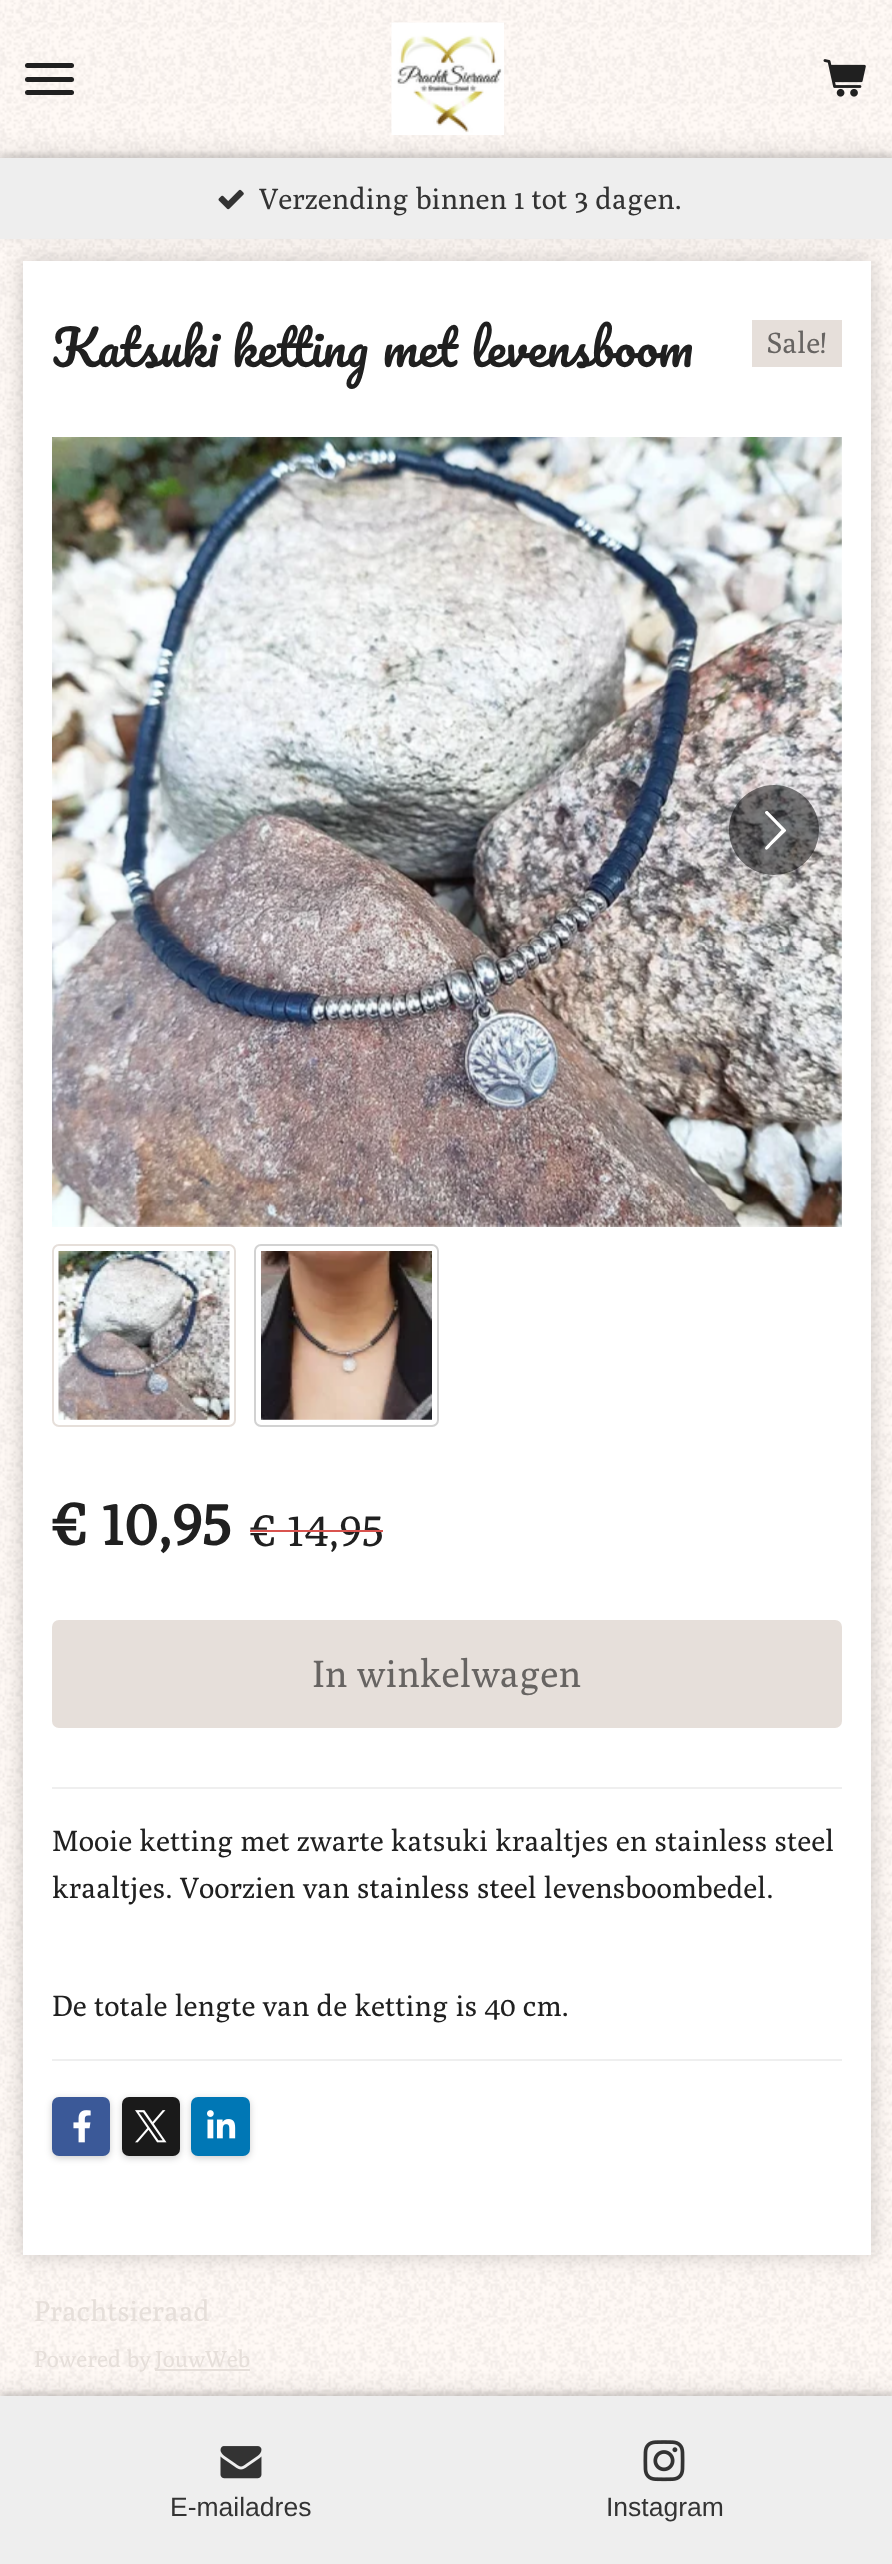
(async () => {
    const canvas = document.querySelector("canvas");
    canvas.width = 892;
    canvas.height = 2564;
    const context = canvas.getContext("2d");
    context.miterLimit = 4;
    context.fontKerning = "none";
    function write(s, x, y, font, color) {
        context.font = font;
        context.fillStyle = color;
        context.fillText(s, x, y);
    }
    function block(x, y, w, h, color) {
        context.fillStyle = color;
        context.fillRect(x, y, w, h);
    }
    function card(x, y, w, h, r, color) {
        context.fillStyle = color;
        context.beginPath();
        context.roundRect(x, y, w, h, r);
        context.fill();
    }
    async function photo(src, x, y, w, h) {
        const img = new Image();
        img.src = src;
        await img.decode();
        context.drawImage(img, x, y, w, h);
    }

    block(0, 0, 892, 2564, "rgb(255, 249, 245)");
    await photo("media/1.png", 0, 0, 892, 2396);
    card(25, 77, 49, 5, 2.5, "rgb(32, 32, 32)");
    card(25, 63, 49, 5, 2.5, "rgb(32, 32, 32)");
    card(25, 90, 49, 5, 2.5, "rgb(32, 32, 32)");
    context.fillStyle = "rgba(0, 0, 0, 0.1)";
    context.filter = "blur(11px)";
    context.beginPath();
    context.rect(0, 153, 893, 81);
    context.fill();
    context.filter = "none";
    await photo("media/2.png", 391, 22, 113, 113);
    await photo("media/3.png", 823, 59, 43, 38);
    context.filter = "blur(2px)";
    context.beginPath();
    context.rect(0, 153, 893, 81);
    context.fill();
    context.filter = "none";
    block(0, 158, 892, 81, "rgb(238, 238, 238)");
    await photo("media/4.png", 218, 189, 26, 21);
    write("Verzending binnen 1 tot 3 dagen.", 259, 209, "29.25px Poly", "rgb(51, 51, 51)");
    context.fillStyle = "rgba(0, 0, 0, 0.2)";
    context.filter = "blur(11px)";
    context.beginPath();
    context.rect(23, 261, 848, 1994);
    context.fill();
    context.filter = "none";
    block(23, 261, 848, 1994, "rgb(255, 255, 255)");
    context.wordSpacing = "1px";
    write("Katsuki ketting met levensboom", 52, 367, "48.4px Pacifico", "rgb(32, 32, 32)");
    block(752, 320, 90, 47, "rgb(230, 223, 218)");
    context.wordSpacing = "0px";
    write("Sale!", 767, 353, "29.25px Poly", "rgb(103, 100, 98)");
    await photo("media/5.png", 52, 437, 790, 790);
    context.fillStyle = "rgba(0, 0, 0, 0.5)";
    context.beginPath();
    context.arc(774, 830, 45, 0, Math.PI * 2);
    context.fill();
    context.fillStyle = "rgb(255, 255, 255)";
    context.beginPath();
    context.moveTo(765.5, 847);
    context.lineTo(781.5, 830);
    context.lineTo(768.5, 816.5);
    context.bezierCurveTo(767.5, 815.5, 762.5, 812, 766.5, 811);
    context.lineTo(767.5, 811);
    context.lineTo(785.5, 829.5);
    context.lineTo(786, 830);
    context.lineTo(786, 831);
    context.lineTo(770.5, 846);
    context.bezierCurveTo(770.5, 846.5, 766, 852, 765, 848.5);
    context.closePath();
    context.fill();
    context.beginPath();
    context.roundRect(53, 1245, 182, 181, 6);
    context.strokeStyle = "rgb(230, 223, 218)";
    context.lineWidth = 2;
    context.stroke();
    await photo("media/6.png", 58, 1251, 172, 169);
    context.beginPath();
    context.roundRect(255, 1245, 183, 181, 6);
    context.strokeStyle = "rgb(210, 210, 210)";
    context.stroke();
    await photo("media/7.png", 261, 1251, 171, 169);
    write("€ 10,95", 52, 1545, "bold 58.5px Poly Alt", "rgb(32, 32, 32)");
    write("€ 14,95", 250, 1546, "44px Poly Alt", "rgb(32, 32, 32)");
    block(250, 1530, 133, 2, "rgb(217, 83, 79)");
    card(52, 1620, 790, 108, 7, "rgb(230, 223, 218)");
    write("In winkelwagen", 312, 1687, "38px Poly", "rgb(103, 100, 98)");
    block(52, 1787, 790, 2, "rgb(239, 239, 239)");
    write("Mooie ketting met zwarte katsuki kraaltjes en stainless steel", 52, 1851, "29.25px Poly", "rgb(32, 32, 32)");
    write("kraaltjes. Voorzien van stainless steel levensboombedel.", 52, 1898, "29.25px Poly", "rgb(32, 32, 32)");
    write("De totale lengte van de ketting is 40 cm.", 52, 2016, "29.25px Poly", "rgb(32, 32, 32)");
    block(52, 2059, 790, 2, "rgb(239, 239, 239)");
    context.fillStyle = "rgba(0, 0, 0, 0.2)";
    context.filter = "blur(3.5px)";
    context.beginPath();
    context.roundRect(52, 2099, 58, 59, 7);
    context.fill();
    context.filter = "none";
    card(52, 2097, 58, 59, 7, "rgb(59, 89, 152)");
    await photo("media/8.png", 73, 2110, 18, 33);
    context.fillStyle = "rgba(0, 0, 0, 0.2)";
    context.filter = "blur(3.5px)";
    context.beginPath();
    context.roundRect(122, 2099, 58, 59, 7);
    context.fill();
    context.filter = "none";
    card(122, 2097, 58, 59, 7, "rgb(26, 26, 26)");
    await photo("media/9.png", 135, 2110, 32, 33);
    context.fillStyle = "rgba(0, 0, 0, 0.2)";
    context.filter = "blur(3.5px)";
    context.beginPath();
    context.roundRect(191, 2099, 59, 59, 7);
    context.fill();
    context.filter = "none";
    card(191, 2097, 59, 59, 7, "rgb(0, 119, 181)");
    await photo("media/10.png", 207, 2110, 29, 29);
    write("Prachtsieraad", 34, 2321, "28.5px Poly", "rgb(230, 223, 218)");
    write("Powered by", 34, 2367, "23px Poly", "rgb(230, 223, 218)");
    block(155, 2369, 95, 2, "rgb(230, 223, 218)");
    write("JouwWeb", 155, 2367, "23px Poly", "rgb(230, 223, 218)");
    context.fillStyle = "rgba(0, 0, 0, 0.1)";
    context.filter = "blur(2px)";
    context.beginPath();
    context.rect(0, 2392, 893, 169);
    context.fill();
    context.filter = "none";
    context.filter = "blur(11px)";
    context.beginPath();
    context.rect(0, 2392, 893, 169);
    context.fill();
    context.filter = "none";
    block(0, 2396, 892, 168, "rgb(238, 238, 238)");
    await photo("media/11.png", 220, 2446, 42, 33);
    write("E-mailadres", 170, 2516, "26.5px Liberation Sans", "rgb(51, 51, 51)");
    await photo("media/12.png", 643, 2440, 42, 42);
    write("Instagram", 606, 2516, "26.5px Liberation Sans", "rgb(51, 51, 51)");
})();
